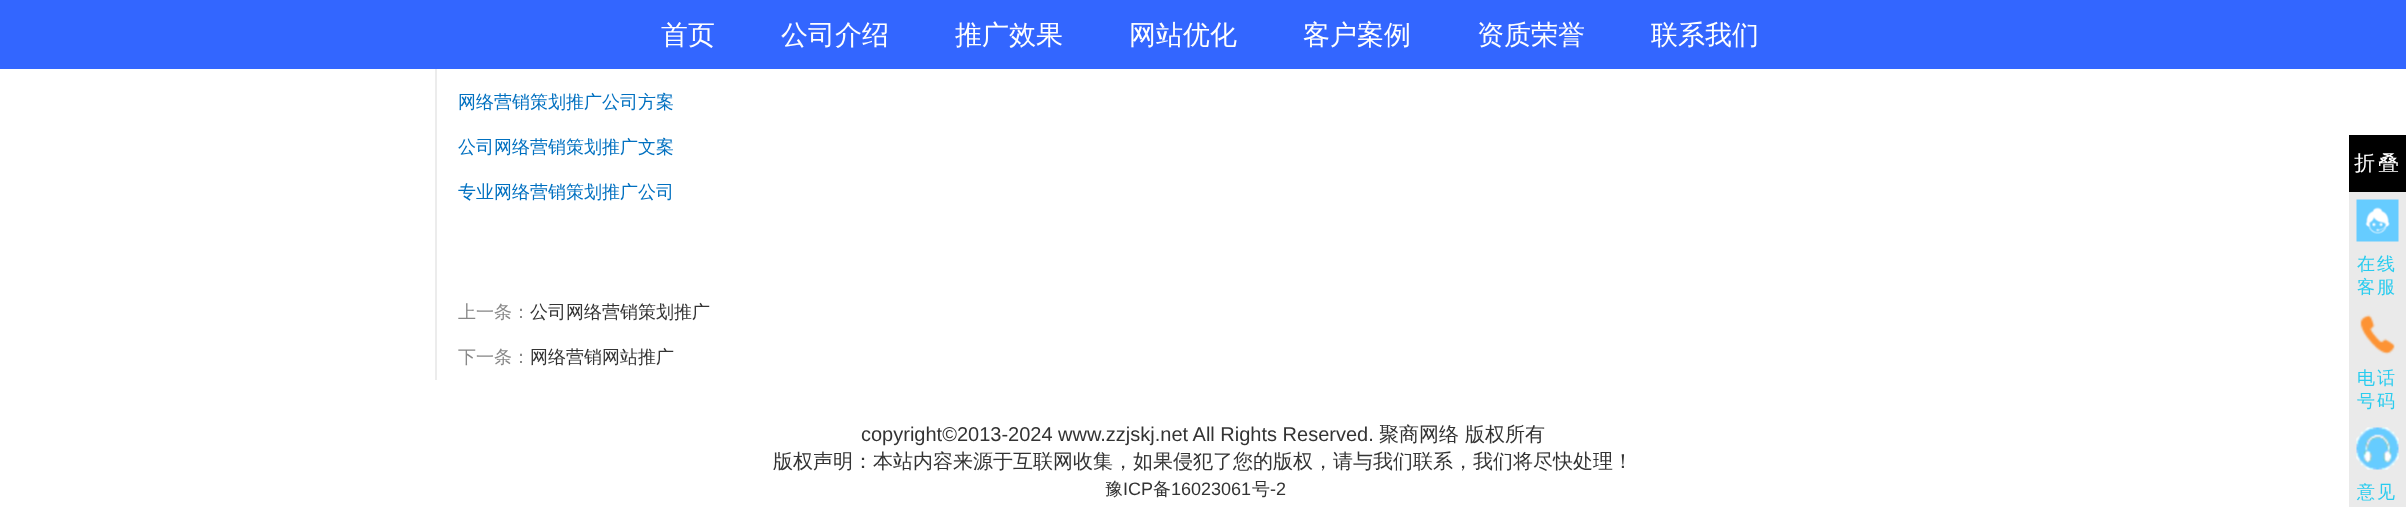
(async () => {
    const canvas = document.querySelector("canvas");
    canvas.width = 2406;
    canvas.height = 507;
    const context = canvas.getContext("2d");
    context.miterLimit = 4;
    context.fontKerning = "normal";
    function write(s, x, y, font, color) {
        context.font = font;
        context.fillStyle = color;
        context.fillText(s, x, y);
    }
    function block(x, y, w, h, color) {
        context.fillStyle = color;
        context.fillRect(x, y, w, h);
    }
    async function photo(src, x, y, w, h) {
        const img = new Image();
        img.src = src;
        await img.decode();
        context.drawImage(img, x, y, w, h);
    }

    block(0, 0, 2406, 507, "rgb(255, 255, 255)");
    block(0, 0, 2406, 69, "rgb(51, 102, 255)");
    write("首页", 661, 44, "500 27px WenQuanYi Zen Hei", "rgb(255, 255, 255)");
    write("公司介绍", 781, 44, "500 27px WenQuanYi Zen Hei", "rgb(255, 255, 255)");
    write("推广效果", 955, 44, "500 27px WenQuanYi Zen Hei", "rgb(255, 255, 255)");
    write("网站优化", 1129, 44, "500 27px WenQuanYi Zen Hei", "rgb(255, 255, 255)");
    write("客户案例", 1303, 44, "500 27px WenQuanYi Zen Hei", "rgb(255, 255, 255)");
    write("资质荣誉", 1477, 44, "500 27px WenQuanYi Zen Hei", "rgb(255, 255, 255)");
    write("联系我们", 1651, 44, "500 27px WenQuanYi Zen Hei", "rgb(255, 255, 255)");
    block(435, 69, 2, 311, "rgb(236, 236, 236)");
    write("网络营销策划推广公司方案", 458, 108, "500 18px WenQuanYi Zen Hei", "rgb(0, 112, 192)");
    write("公司网络营销策划推广文案", 458, 153, "500 18px WenQuanYi Zen Hei", "rgb(0, 112, 192)");
    write("专业网络营销策划推广公司", 458, 198, "500 18px WenQuanYi Zen Hei", "rgb(0, 112, 192)");
    write("上一条：", 458, 318, "500 18px WenQuanYi Zen Hei", "rgb(136, 136, 136)");
    write("公司网络营销策划推广", 530, 318, "500 18px WenQuanYi Zen Hei", "rgb(51, 51, 51)");
    write("下一条：", 458, 363, "500 18px WenQuanYi Zen Hei", "rgb(136, 136, 136)");
    write("网络营销网站推广", 530, 363, "500 18px WenQuanYi Zen Hei", "rgb(51, 51, 51)");
    write("copyright©2013-2024 www.zzjskj.net All Rights Reserved.", 861, 441, "20px Liberation Sans", "rgb(51, 51, 51)");
    write("聚商网络", 1379, 441, "500 20px WenQuanYi Zen Hei", "rgb(51, 51, 51)");
    write("版权所有", 1465, 441, "500 20px WenQuanYi Zen Hei", "rgb(51, 51, 51)");
    write("版权声明：本站内容来源于互联网收集，如果侵犯了您的版权，请与我们联系，我们将尽快处理！", 773, 468, "500 20px WenQuanYi Zen Hei", "rgb(51, 51, 51)");
    write("豫", 1105, 495, "500 18px WenQuanYi Zen Hei", "rgb(51, 51, 51)");
    write("ICP", 1123, 495, "18px Liberation Sans", "rgb(51, 51, 51)");
    write("备", 1153, 495, "500 18px WenQuanYi Zen Hei", "rgb(51, 51, 51)");
    write("16023061", 1171, 495, "18px Liberation Sans", "rgb(51, 51, 51)");
    write("号", 1252, 495, "500 18px WenQuanYi Zen Hei", "rgb(51, 51, 51)");
    write("-2", 1270, 495, "18px Liberation Sans", "rgb(51, 51, 51)");
    block(2349, 192, 57, 315, "rgb(234, 234, 234)");
    block(2349, 135, 57, 57, "rgb(0, 0, 0)");
    context.letterSpacing = "3px";
    write("折叠", 2354, 170, "500 21px WenQuanYi Zen Hei", "rgb(255, 255, 255)");
    await photo("media/1.png", 2356, 199, 43, 43);
    context.letterSpacing = "2px";
    write("在线", 2357, 270, "500 18px WenQuanYi Zen Hei", "rgb(41, 204, 239)");
    write("客服", 2357, 293, "500 18px WenQuanYi Zen Hei", "rgb(41, 204, 239)");
    await photo("media/2.png", 2360, 314, 35, 41);
    write("电话", 2357, 384, "500 18px WenQuanYi Zen Hei", "rgb(41, 204, 239)");
    write("号码", 2357, 407, "500 18px WenQuanYi Zen Hei", "rgb(41, 204, 239)");
    await photo("media/3.png", 2356, 427, 43, 43);
    write("意见", 2357, 498, "500 18px WenQuanYi Zen Hei", "rgb(41, 204, 239)");
})();
